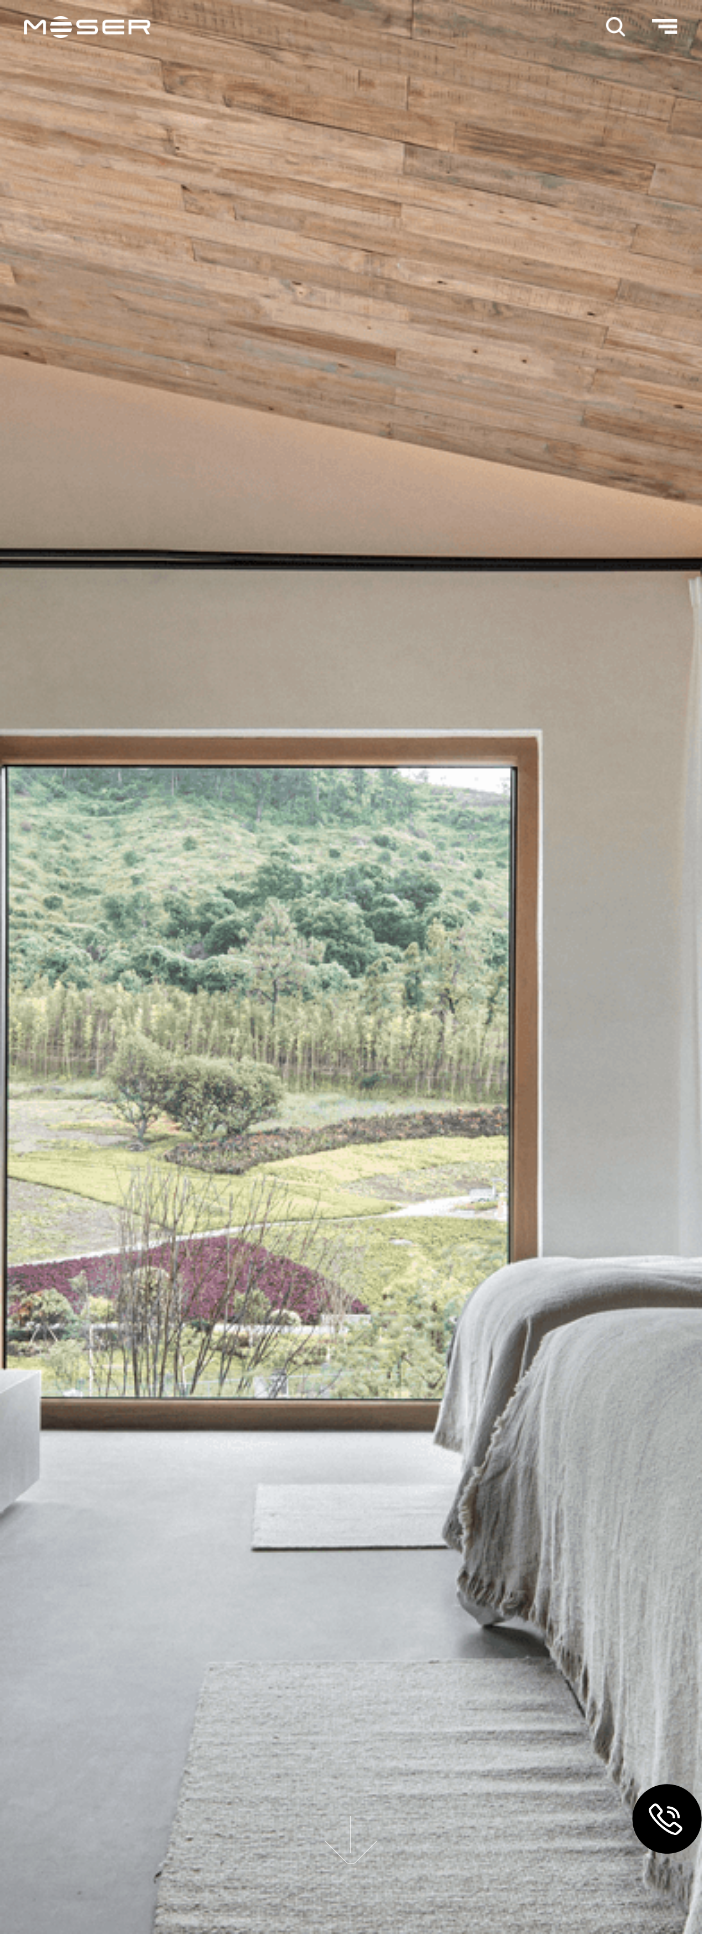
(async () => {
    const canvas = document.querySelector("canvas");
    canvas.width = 702;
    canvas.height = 1934;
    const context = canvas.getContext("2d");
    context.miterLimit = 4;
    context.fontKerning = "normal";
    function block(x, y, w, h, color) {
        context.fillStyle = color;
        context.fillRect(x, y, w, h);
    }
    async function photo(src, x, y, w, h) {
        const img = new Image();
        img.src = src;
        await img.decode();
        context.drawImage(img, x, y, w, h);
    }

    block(0, 0, 702, 1934, "rgb(255, 255, 255)");
    await photo("media/1.png", 0, 0, 702, 1934);
    await photo("media/2.png", 325, 1816, 52, 48);
    await photo("media/3.png", 24, 16, 127, 22);
    await photo("media/4.png", 606, 17, 20, 20);
    await photo("media/5.png", 652, 19, 26, 15);
    await photo("media/6.png", 632, 1784, 70, 70);
})();
